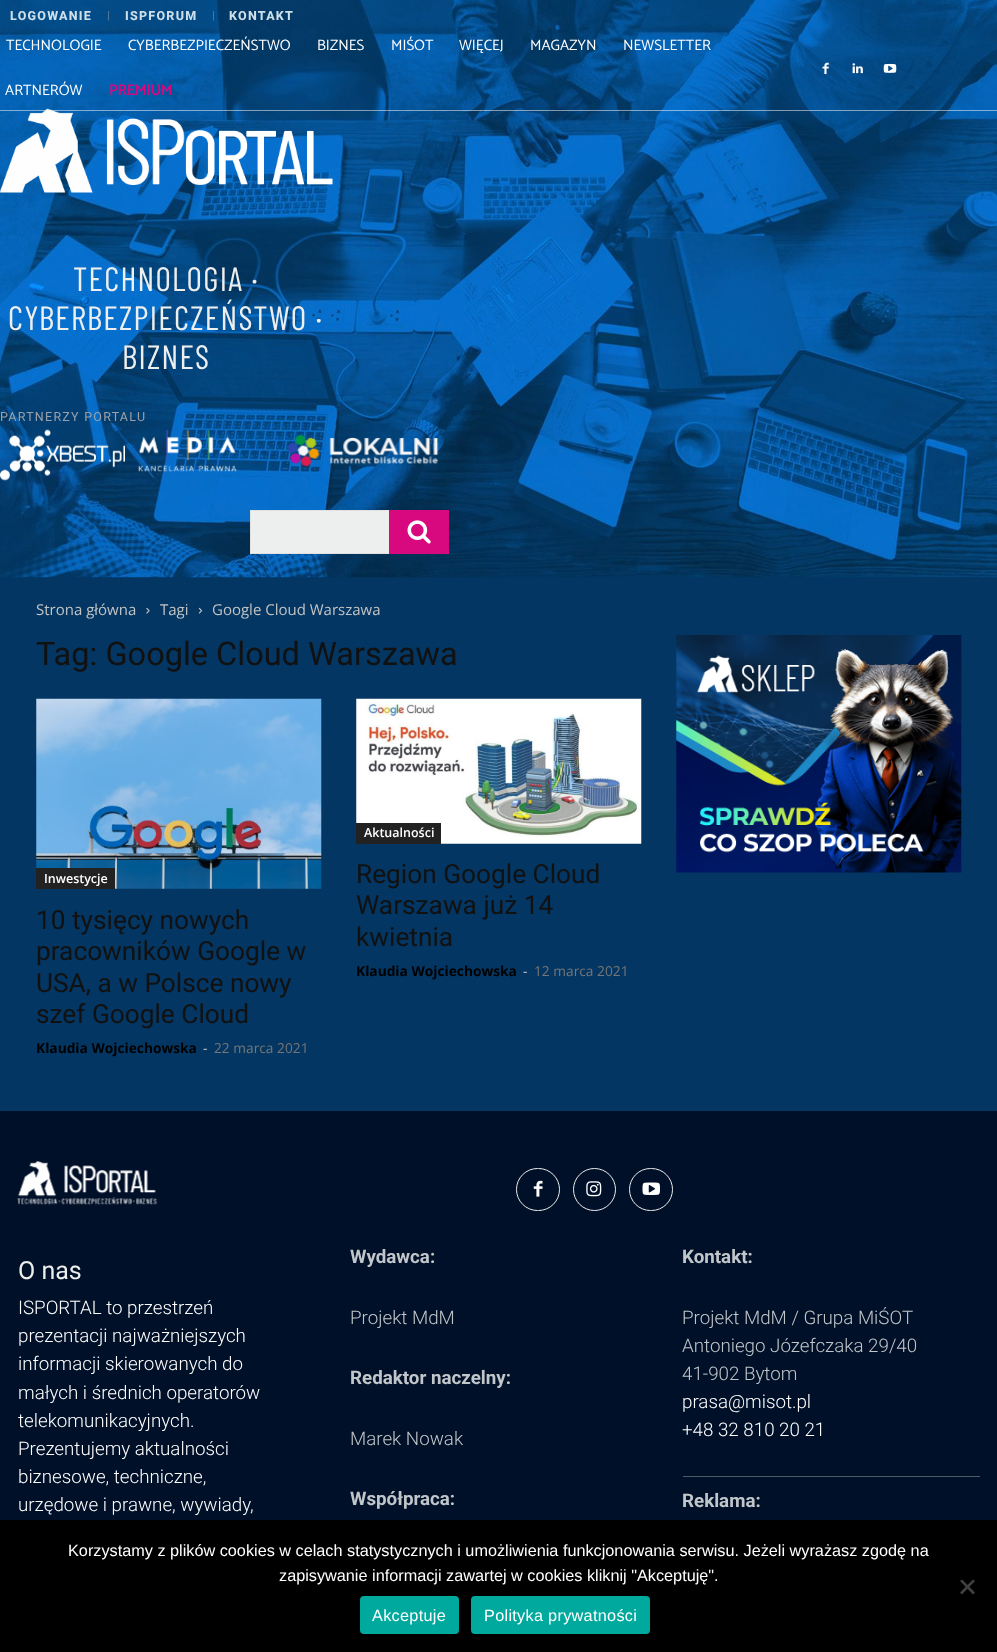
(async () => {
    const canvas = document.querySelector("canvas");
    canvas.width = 997;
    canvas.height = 1652;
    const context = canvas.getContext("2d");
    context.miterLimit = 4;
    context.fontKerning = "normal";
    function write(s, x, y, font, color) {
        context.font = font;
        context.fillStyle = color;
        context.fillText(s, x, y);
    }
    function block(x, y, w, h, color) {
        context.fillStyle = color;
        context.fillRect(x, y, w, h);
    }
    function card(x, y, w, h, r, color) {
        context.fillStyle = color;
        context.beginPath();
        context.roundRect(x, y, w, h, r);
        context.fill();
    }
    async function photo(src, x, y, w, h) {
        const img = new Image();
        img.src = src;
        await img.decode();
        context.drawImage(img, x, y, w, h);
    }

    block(0, 0, 997, 1652, "rgb(3, 54, 99)");
    await photo("media/4.png", 0, 0, 997, 578);
    context.letterSpacing = "1.25px";
    write("LOGOWANIE", 10, 20, "800 12.5px Roboto", "rgb(206, 223, 234)");
    context.fillStyle = "rgb(155, 161, 168)";
    context.beginPath();
    context.moveTo(108.5, 11);
    context.lineTo(109, 11);
    context.lineTo(109, 20.5);
    context.lineTo(108.5, 20.5);
    context.closePath();
    context.fill();
    write("ISPFORUM", 125, 20, "800 12.5px Roboto", "rgb(206, 223, 234)");
    context.fillStyle = "rgb(155, 161, 168)";
    context.beginPath();
    context.moveTo(213.5, 11);
    context.lineTo(214, 11);
    context.lineTo(214, 20.5);
    context.lineTo(213.5, 20.5);
    context.closePath();
    context.fill();
    write("KONTAKT", 229, 20, "800 12.5px Roboto", "rgb(206, 223, 234)");
    context.letterSpacing = "0px";
    write("TECHNOLOGIE", 6, 50, "15px Catamaran", "rgb(255, 255, 255)");
    write("CYBERBEZPIECZEŃSTWO", 128, 50, "15px Catamaran", "rgb(255, 255, 255)");
    write("BIZNES", 317, 50, "15px Catamaran", "rgb(255, 255, 255)");
    write("MIŚOT", 391, 50, "15px Catamaran", "rgb(255, 255, 255)");
    write("WIĘCEJ", 459, 50, "15px Catamaran", "rgb(255, 255, 255)");
    write("MAGAZYN", 530, 50, "15px Catamaran", "rgb(255, 255, 255)");
    write("NEWSLETTER", 623, 50, "15px Catamaran", "rgb(255, 255, 255)");
    write("ARTNERÓW", 5, 95, "15px Catamaran", "rgb(255, 255, 255)");
    write("PREMIUM", 109, 95, "bold 15px Catamaran", "rgb(216, 9, 126)");
    await photo("media/1.png", 822, 62, 7, 12);
    await photo("media/2.png", 852, 63, 11, 11);
    await photo("media/3.png", 883, 63, 14, 10);
    await photo("media/5.png", 0, 108, 333, 85);
    block(0, 110, 997, 1, "rgba(255, 255, 255, 0.5)");
    context.letterSpacing = "1.25px";
    write("TECHNOLOGIA ·", 73, 291, "33.75px Barlow Condensed", "rgb(237, 238, 238)");
    write("CYBERBEZPIECZEŃSTWO ·", 8, 330, "33.75px Barlow Condensed", "rgb(237, 238, 238)");
    write("BIZNES", 122, 369, "33.75px Barlow Condensed", "rgb(237, 238, 238)");
    write("PARTNERZY PORTALU", 0, 421, "12.5px Roboto", "rgb(155, 161, 168)");
    await photo("media/6.png", 0, 429, 125, 52);
    await photo("media/7.png", 138, 429, 99, 43);
    await photo("media/8.png", 287, 435, 152, 32);
    block(251, 511, 138, 42, "rgb(237, 238, 238)");
    context.strokeStyle = "rgb(225, 225, 225)";
    context.strokeRect(250.5, 510.5, 198, 43);
    block(389, 510, 60, 44, "rgb(216, 9, 126)");
    await photo("media/9.png", 407, 520, 24, 24);
    context.letterSpacing = "0px";
    write("Strona główna", 36, 615, "15px Open Sans", "rgb(195, 195, 195)");
    await photo("media/10.png", 146, 607, 4, 7);
    write("Tagi", 160, 615, "15px Open Sans", "rgb(195, 195, 195)");
    await photo("media/11.png", 198, 607, 5, 7);
    write("Google Cloud Warszawa", 212, 615, "15px Open Sans", "rgb(195, 195, 195)");
    write("Tag: Google Cloud Warszawa", 36, 665, "32.5px Roboto", "rgb(17, 17, 17)");
    await photo("media/12.png", 36, 698, 286, 191);
    block(36, 868, 79, 21, "rgb(34, 34, 34)");
    write("Inwestycje", 44, 883, "600 12.5px Open Sans", "rgb(255, 255, 255)");
    write("10 tysięcy nowych", 36, 929, "26.25px Roboto", "rgb(17, 17, 17)");
    write("pracowników Google w", 36, 960, "26.25px Roboto", "rgb(17, 17, 17)");
    write("USA, a w Polsce nowy", 36, 992, "26.25px Roboto", "rgb(17, 17, 17)");
    write("szef Google Cloud", 36, 1023, "26.25px Roboto", "rgb(17, 17, 17)");
    write("Klaudia Wojciechowska", 36, 1053, "bold 13.75px Open Sans", "rgb(0, 0, 0)");
    write("-", 203, 1053, "13.75px Open Sans", "rgb(204, 204, 204)");
    write("22 marca 2021", 214, 1053, "13.75px Open Sans", "rgb(118, 118, 118)");
    await photo("media/13.png", 356, 698, 286, 146);
    block(356, 823, 85, 21, "rgb(34, 34, 34)");
    write("Aktualności", 364, 837, "600 12.5px Open Sans", "rgb(255, 255, 255)");
    write("Region Google Cloud", 356, 883, "26.25px Roboto", "rgb(17, 17, 17)");
    write("Warszawa już 14", 356, 914, "26.25px Roboto", "rgb(17, 17, 17)");
    write("kwietnia", 356, 946, "26.25px Roboto", "rgb(17, 17, 17)");
    write("Klaudia Wojciechowska", 356, 976, "bold 13.75px Open Sans", "rgb(0, 0, 0)");
    write("-", 523, 976, "13.75px Open Sans", "rgb(204, 204, 204)");
    write("12 marca 2021", 534, 976, "13.75px Open Sans", "rgb(118, 118, 118)");
    await photo("media/14.png", 676, 635, 286, 238);
    block(0, 1111, 997, 409, "rgb(0, 16, 40)");
    await photo("media/15.png", 17, 1161, 140, 44);
    context.beginPath();
    context.roundRect(516.5, 1168.5, 43, 42, 21);
    context.strokeStyle = "rgb(237, 237, 237)";
    context.stroke();
    await photo("media/16.png", 533, 1180, 10, 17);
    context.beginPath();
    context.arc(594.5, 1189.5, 21, 0, Math.PI * 2);
    context.stroke();
    await photo("media/17.png", 586, 1181, 16, 16);
    context.beginPath();
    context.roundRect(629.5, 1168.5, 43, 42, 21);
    context.stroke();
    await photo("media/18.png", 642, 1182, 18, 13);
    write("O nas", 18, 1279, "25px Roboto", "rgb(237, 238, 238)");
    write("ISPORTAL to przestrzeń", 18, 1314, "300 18.75px Roboto", "rgb(255, 255, 255)");
    write("prezentacji najważniejszych", 18, 1342, "300 18.75px Roboto", "rgb(255, 255, 255)");
    write("informacji skierowanych do", 18, 1370, "300 18.75px Roboto", "rgb(255, 255, 255)");
    write("małych i średnich operatorów", 18, 1399, "300 18.75px Roboto", "rgb(255, 255, 255)");
    write("telekomunikacyjnych.", 18, 1427, "300 18.75px Roboto", "rgb(255, 255, 255)");
    write("Prezentujemy aktualności", 18, 1455, "300 18.75px Roboto", "rgb(255, 255, 255)");
    write("biznesowe, techniczne,", 18, 1483, "300 18.75px Roboto", "rgb(255, 255, 255)");
    write("urzędowe i prawne, wywiady,", 18, 1511, "300 18.75px Roboto", "rgb(255, 255, 255)");
    write("Wydawca:", 350, 1263, "bold 18.75px Roboto", "rgb(193, 198, 202)");
    write("Projekt MdM", 350, 1324, "300 18.75px Roboto", "rgb(193, 198, 202)");
    write("Redaktor naczelny:", 350, 1384, "bold 18.75px Roboto", "rgb(193, 198, 202)");
    write("Marek Nowak", 350, 1445, "300 18.75px Roboto", "rgb(193, 198, 202)");
    write("Współpraca:", 350, 1505, "bold 18.75px Roboto", "rgb(193, 198, 202)");
    write("Kontakt:", 682, 1263, "bold 18.75px Roboto", "rgb(193, 198, 202)");
    write("Projekt MdM / Grupa MiŚOT", 682, 1324, "300 18.75px Roboto", "rgb(193, 198, 202)");
    write("Antoniego Józefczaka 29/40", 682, 1352, "300 18.75px Roboto", "rgb(193, 198, 202)");
    write("41-902 Bytom", 682, 1380, "300 18.75px Roboto", "rgb(193, 198, 202)");
    write("prasa@misot.pl", 682, 1408, "300 18.75px Roboto", "rgb(255, 255, 255)");
    write("+48 32 810 20 21", 682, 1436, "300 18.75px Roboto", "rgb(255, 255, 255)");
    block(683, 1476, 297, 1, "rgb(79, 90, 107)");
    write("Reklama:", 682, 1507, "bold 18.75px Roboto", "rgb(193, 198, 202)");
    block(0, 1520, 997, 132, "rgb(0, 0, 0)");
    write("Korzystamy z plików cookies w celach statystycznych i umożliwienia funkcjonowania serwisu. Jeżeli wyrażasz zgodę na", 68, 1556, "16.25px Liberation Sans", "rgb(255, 255, 255)");
    write("zapisywanie informacji zawartej w cookies kliknij \"Akceptuję\".", 279, 1581, "16.25px Liberation Sans", "rgb(255, 255, 255)");
    context.fillStyle = "rgb(64, 64, 64)";
    context.beginPath();
    context.moveTo(973, 1579.5);
    context.lineTo(975, 1581);
    context.lineTo(962, 1594.5);
    context.lineTo(960, 1592.5);
    context.closePath();
    context.fill();
    context.beginPath();
    context.moveTo(960, 1581);
    context.lineTo(962, 1579.5);
    context.lineTo(975, 1592.5);
    context.lineTo(973, 1594.5);
    context.closePath();
    context.fill();
    card(360, 1596, 99, 38, 4, "rgb(0, 169, 157)");
    context.letterSpacing = "0.3px";
    write("Akceptuje", 372, 1621, "16.25px Liberation Sans", "rgb(255, 255, 255)");
    card(471, 1596, 179, 38, 4, "rgb(0, 169, 157)");
    write("Polityka prywatności", 484, 1621, "16.25px Liberation Sans", "rgb(255, 255, 255)");
})();
